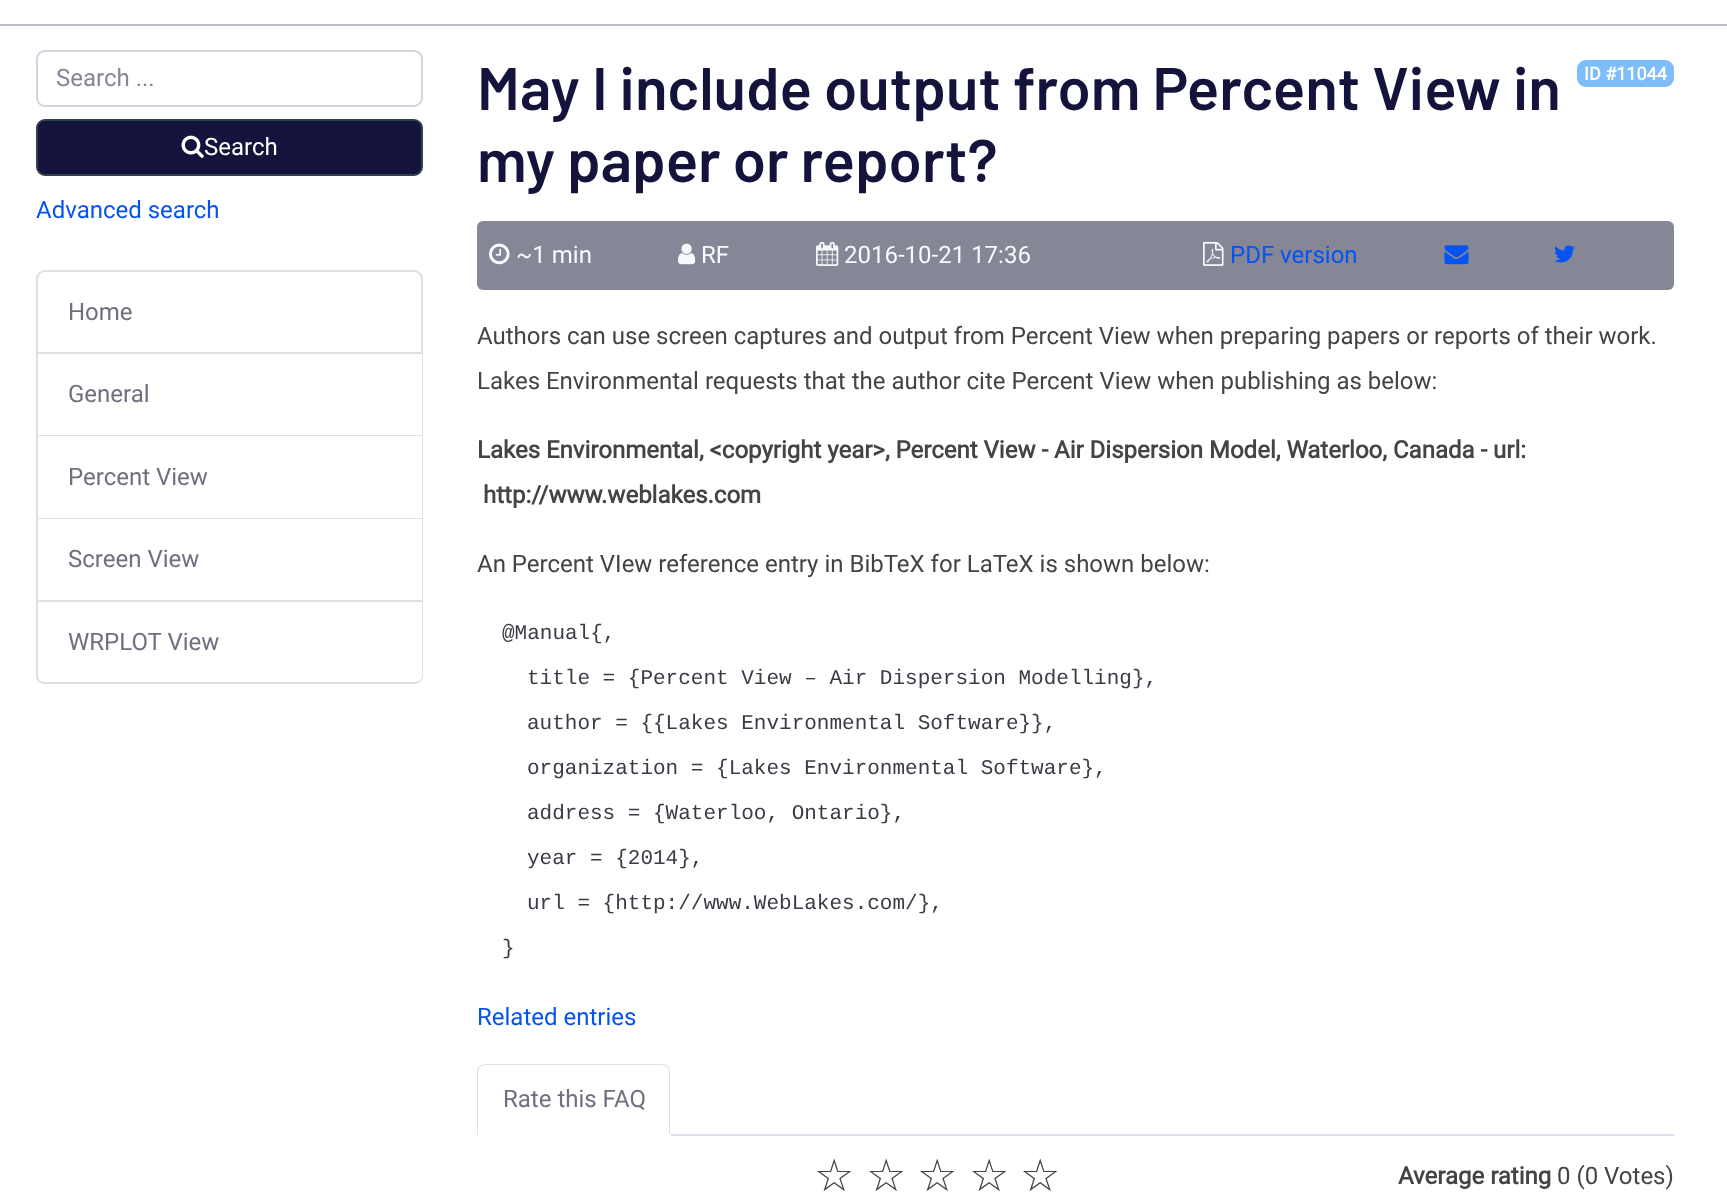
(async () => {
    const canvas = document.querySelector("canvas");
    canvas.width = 1727;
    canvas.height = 1203;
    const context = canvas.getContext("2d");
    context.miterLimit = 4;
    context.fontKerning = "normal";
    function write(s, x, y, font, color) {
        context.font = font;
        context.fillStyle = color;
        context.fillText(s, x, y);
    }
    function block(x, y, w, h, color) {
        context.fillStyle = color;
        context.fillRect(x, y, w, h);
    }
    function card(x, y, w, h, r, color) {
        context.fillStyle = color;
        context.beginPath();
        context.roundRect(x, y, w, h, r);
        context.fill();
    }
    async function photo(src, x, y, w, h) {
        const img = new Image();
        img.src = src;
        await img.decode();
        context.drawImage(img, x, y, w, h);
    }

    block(0, 0, 1727, 1203, "rgb(255, 255, 255)");
    block(0, 24, 1727, 2, "rgb(183, 185, 204)");
    context.beginPath();
    context.roundRect(37, 51, 385, 55, 8);
    context.strokeStyle = "rgb(209, 211, 226)";
    context.lineWidth = 2;
    context.stroke();
    write("Search ...", 56, 86, "24px Roboto", "rgb(133, 135, 150)");
    context.fillStyle = "rgb(20, 19, 59)";
    context.beginPath();
    context.roundRect(37, 120, 385, 55, 8);
    context.fill();
    context.strokeStyle = "rgb(47, 65, 74)";
    context.stroke();
    await photo("media/1.png", 181, 135, 23, 23);
    write("Search", 204, 155, "24px Roboto", "rgb(255, 255, 255)");
    write("Advanced search", 36, 218, "24px Roboto", "rgb(5, 84, 242)");
    context.beginPath();
    context.roundRect(37, 271, 385, 82, [8, 8, 0, 0]);
    context.strokeStyle = "rgb(223, 223, 223)";
    context.stroke();
    write("Home", 68, 320, "24px Roboto", "rgb(110, 112, 126)");
    context.fillStyle = "rgb(223, 223, 223)";
    context.beginPath();
    context.moveTo(423, 354);
    context.lineTo(423, 436);
    context.lineTo(422, 435);
    context.lineTo(422, 354);
    context.closePath();
    context.fill();
    context.fillStyle = "rgba(0, 0, 0, 0.12)";
    context.beginPath();
    context.moveTo(423, 436);
    context.lineTo(36, 436);
    context.lineTo(38, 435);
    context.lineTo(422, 435);
    context.closePath();
    context.fill();
    context.beginPath();
    context.moveTo(36, 436);
    context.lineTo(36, 354);
    context.lineTo(38, 354);
    context.lineTo(38, 435);
    context.closePath();
    context.fill();
    write("General", 68, 402, "24px Roboto", "rgb(110, 112, 126)");
    context.fillStyle = "rgb(223, 223, 223)";
    context.beginPath();
    context.moveTo(423, 436);
    context.lineTo(423, 519);
    context.lineTo(422, 518);
    context.lineTo(422, 436);
    context.closePath();
    context.fill();
    context.fillStyle = "rgba(0, 0, 0, 0.12)";
    context.beginPath();
    context.moveTo(423, 519);
    context.lineTo(36, 519);
    context.lineTo(38, 518);
    context.lineTo(422, 518);
    context.closePath();
    context.fill();
    context.beginPath();
    context.moveTo(36, 519);
    context.lineTo(36, 436);
    context.lineTo(38, 436);
    context.lineTo(38, 518);
    context.closePath();
    context.fill();
    write("Percent View", 68, 485, "24px Roboto", "rgb(110, 112, 126)");
    context.fillStyle = "rgb(223, 223, 223)";
    context.beginPath();
    context.moveTo(423, 519);
    context.lineTo(423, 602);
    context.lineTo(422, 600);
    context.lineTo(422, 519);
    context.closePath();
    context.fill();
    context.fillStyle = "rgba(0, 0, 0, 0.12)";
    context.beginPath();
    context.moveTo(423, 602);
    context.lineTo(36, 602);
    context.lineTo(38, 600);
    context.lineTo(422, 600);
    context.closePath();
    context.fill();
    context.beginPath();
    context.moveTo(36, 602);
    context.lineTo(36, 519);
    context.lineTo(38, 519);
    context.lineTo(38, 600);
    context.closePath();
    context.fill();
    write("Screen View", 68, 567, "24px Roboto", "rgb(110, 112, 126)");
    context.fillStyle = "rgb(223, 223, 223)";
    context.beginPath();
    context.moveTo(36, 602);
    context.lineTo(423, 602);
    context.lineTo(423, 676);
    context.bezierCurveTo(423, 680, 419, 684, 415, 684);
    context.lineTo(44, 684);
    context.bezierCurveTo(40, 684, 36, 680, 36, 676);
    context.closePath();
    context.moveTo(38, 602);
    context.lineTo(422, 602);
    context.lineTo(422, 676);
    context.bezierCurveTo(422, 679, 418, 682, 415, 682);
    context.lineTo(44, 682);
    context.bezierCurveTo(41, 682, 38, 679, 38, 676);
    context.closePath();
    context.fill("evenodd");
    write("WRPLOT View", 68, 650, "24px Roboto", "rgb(110, 112, 126)");
    write("May I include output from Percent View in", 477, 110, "600 60px Barlow", "rgb(20, 19, 59)");
    write("my paper or report?", 477, 182, "600 60px Barlow", "rgb(20, 19, 59)");
    card(1577, 60, 97, 27, 9, "rgb(126, 188, 250)");
    write("ID #11044", 1584, 80, "bold 18px Roboto", "rgb(255, 255, 255)");
    card(477, 221, 1197, 69, 6, "rgb(133, 135, 150)");
    await photo("media/2.png", 489, 243, 21, 22);
    write("~1 min", 516, 263, "24px Roboto", "rgb(248, 249, 252)");
    await photo("media/3.png", 678, 243, 18, 22);
    write("RF", 701, 263, "24px Roboto", "rgb(248, 249, 252)");
    await photo("media/4.png", 816, 241, 23, 25);
    write("2016-10-21 17:36", 844, 263, "24px Roboto", "rgb(248, 249, 252)");
    await photo("media/5.png", 1203, 241, 21, 25);
    write("PDF version", 1230, 263, "24px Roboto", "rgb(5, 84, 242)");
    await photo("media/6.png", 1444, 245, 25, 20);
    await photo("media/7.png", 1554, 245, 21, 18);
    write("Authors can use screen captures and output from Percent View when preparing papers or reports of their work.", 477, 344, "24px Roboto", "rgb(68, 68, 68)");
    write("Lakes Environmental requests that the author cite Percent View when publishing as below:", 477, 389, "24px Roboto", "rgb(68, 68, 68)");
    write("Lakes Environmental, <copyright year>, Percent View - Air Dispersion Model, Waterloo, Canada - url:", 477, 458, "bold 24px Roboto", "rgb(68, 68, 68)");
    write("http://www.weblakes.com", 483, 503, "bold 24px Roboto", "rgb(68, 68, 68)");
    write("An Percent VIew reference entry in BibTeX for LaTeX is shown below:", 477, 572, "24px Roboto", "rgb(68, 68, 68)");
    write("@Manual{,", 502, 639, "21px Liberation Mono", "rgb(58, 59, 69)");
    write("title = {Percent View – Air Dispersion Modelling},", 527, 684, "21px Liberation Mono", "rgb(58, 59, 69)");
    write("author = {{Lakes Environmental Software}},", 527, 729, "21px Liberation Mono", "rgb(58, 59, 69)");
    write("organization = {Lakes Environmental Software},", 527, 774, "21px Liberation Mono", "rgb(58, 59, 69)");
    write("address = {Waterloo, Ontario},", 527, 819, "21px Liberation Mono", "rgb(58, 59, 69)");
    write("year = {2014},", 527, 864, "21px Liberation Mono", "rgb(58, 59, 69)");
    write("url = {http://www.WebLakes.com/},", 527, 909, "21px Liberation Mono", "rgb(58, 59, 69)");
    write("}", 502, 954, "21px Liberation Mono", "rgb(58, 59, 69)");
    write("Related entries", 477, 1025, "24px Roboto", "rgb(5, 84, 242)");
    block(671, 1134, 1003, 2, "rgb(221, 223, 235)");
    context.beginPath();
    context.moveTo(485, 1064);
    context.bezierCurveTo(483, 1064, 481, 1065, 480, 1066);
    context.lineTo(480, 1067);
    context.bezierCurveTo(482, 1066, 484, 1065, 485, 1065);
    context.lineTo(662, 1065);
    context.bezierCurveTo(664, 1065, 666, 1066, 667, 1067);
    context.lineTo(668, 1066);
    context.bezierCurveTo(666, 1065, 664, 1064, 662, 1064);
    context.closePath();
    context.fill();
    context.beginPath();
    context.moveTo(670, 1135);
    context.lineTo(670, 1072);
    context.bezierCurveTo(670, 1070, 669, 1068, 668, 1066);
    context.lineTo(667, 1067);
    context.bezierCurveTo(668, 1068, 669, 1070, 669, 1072);
    context.lineTo(669, 1134);
    context.closePath();
    context.fill();
    context.fillStyle = "rgb(255, 255, 255)";
    context.beginPath();
    context.moveTo(670, 1136);
    context.lineTo(477, 1136);
    context.lineTo(478, 1134);
    context.lineTo(669, 1134);
    context.closePath();
    context.fill();
    context.fillStyle = "rgb(221, 223, 235)";
    context.beginPath();
    context.moveTo(477, 1136);
    context.lineTo(478, 1134);
    context.lineTo(478, 1072);
    context.bezierCurveTo(478, 1070, 479, 1068, 480, 1067);
    context.lineTo(480, 1066);
    context.bezierCurveTo(478, 1067, 477, 1069, 477, 1072);
    context.closePath();
    context.fill();
    write("Rate this FAQ", 503, 1107, "24px Roboto", "rgb(110, 112, 126)");
    write("☆", 814, 1191, "45px DejaVu Sans", "rgb(68, 68, 68)");
    write("☆", 866, 1191, "45px DejaVu Sans", "rgb(68, 68, 68)");
    write("☆", 917, 1191, "45px DejaVu Sans", "rgb(68, 68, 68)");
    write("☆", 969, 1191, "45px DejaVu Sans", "rgb(68, 68, 68)");
    write("☆", 1020, 1191, "45px DejaVu Sans", "rgb(68, 68, 68)");
    write("Average rating", 1398, 1184, "bold 24px Roboto", "rgb(68, 68, 68)");
    write("0 (0 Votes)", 1557, 1184, "24px Roboto", "rgb(68, 68, 68)");
})();
